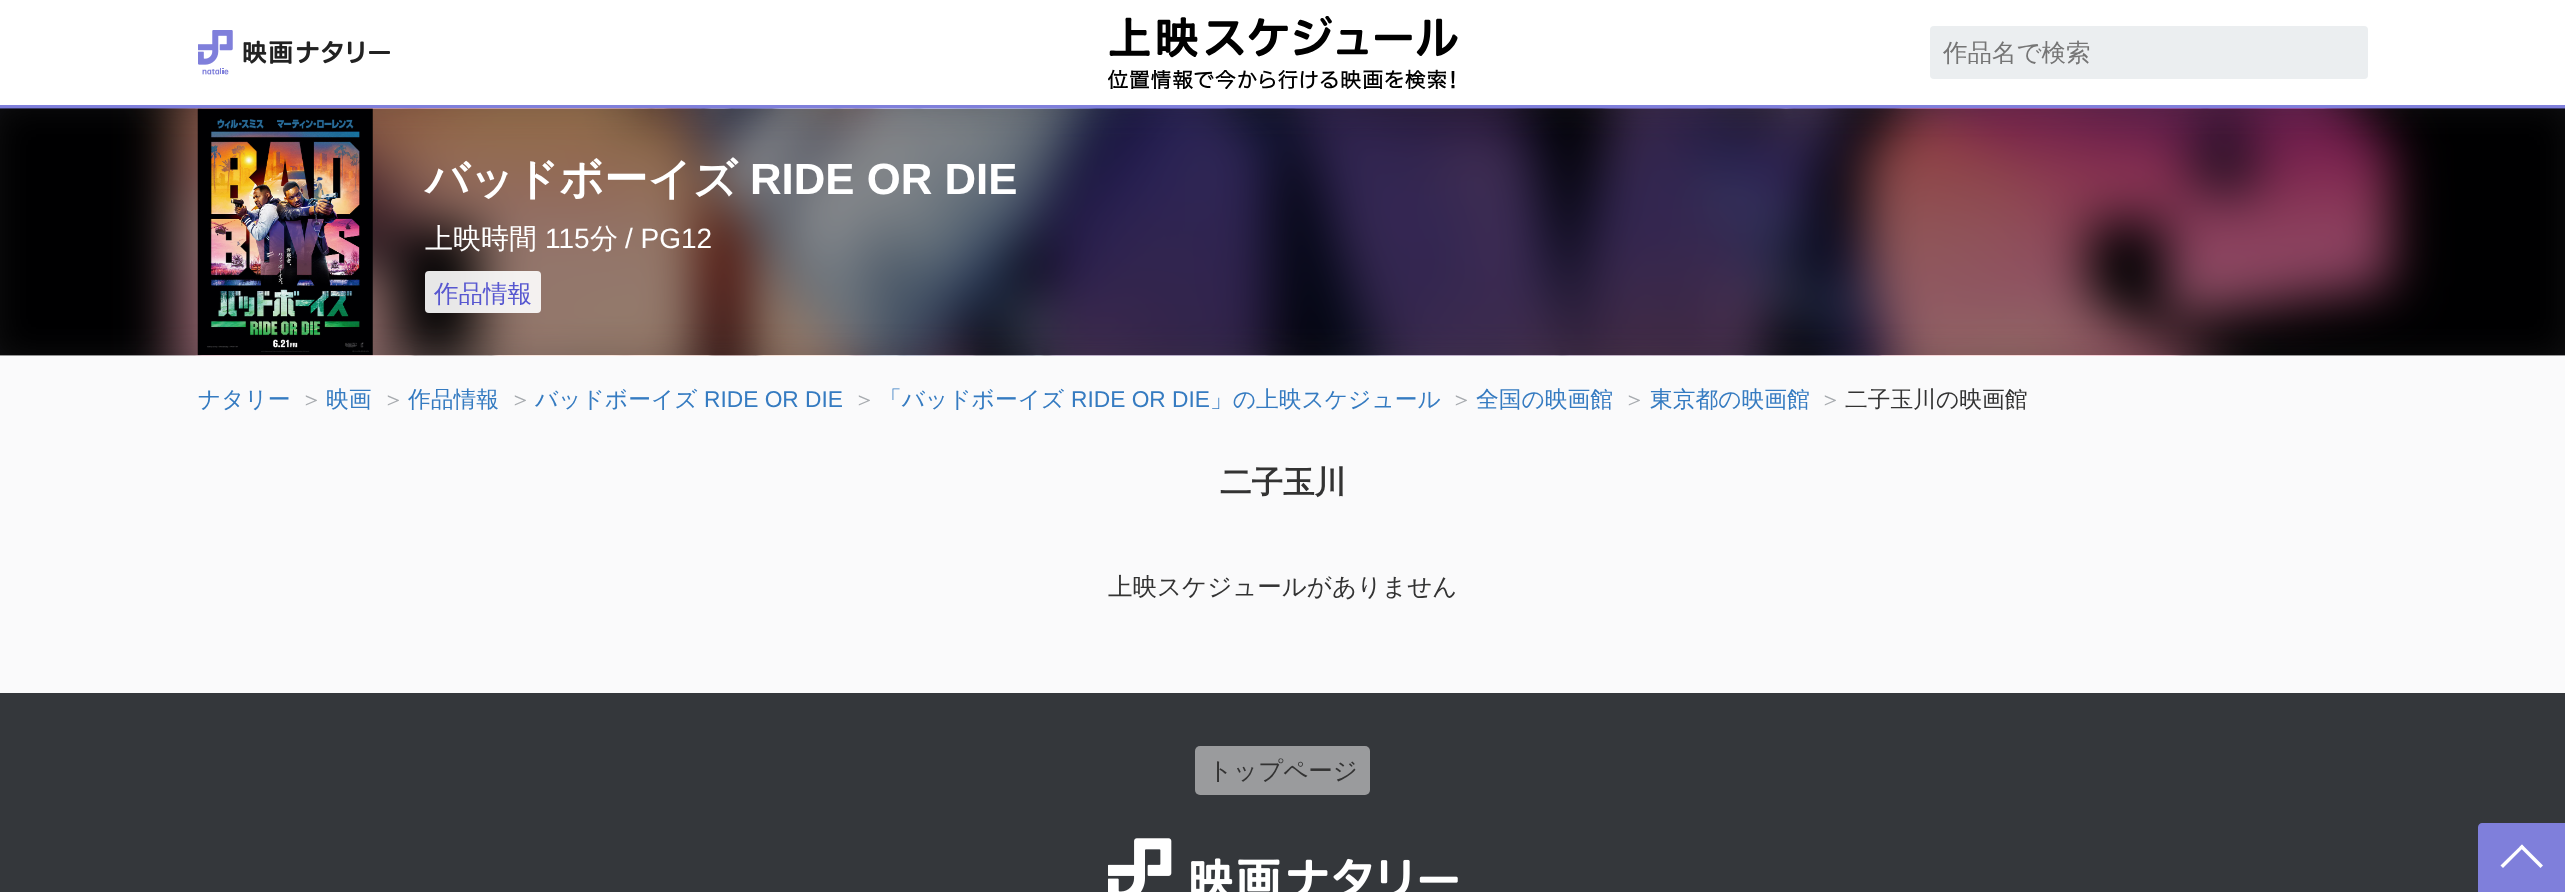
(async () => {
    const canvas = document.querySelector("canvas");
    canvas.width = 2565;
    canvas.height = 892;
    const context = canvas.getContext("2d");
    context.miterLimit = 4;
    context.fontKerning = "normal";
    function write(s, x, y, font, color) {
        context.font = font;
        context.fillStyle = color;
        context.fillText(s, x, y);
    }
    function block(x, y, w, h, color) {
        context.fillStyle = color;
        context.fillRect(x, y, w, h);
    }
    function card(x, y, w, h, r, color) {
        context.fillStyle = color;
        context.beginPath();
        context.roundRect(x, y, w, h, r);
        context.fill();
    }
    async function photo(src, x, y, w, h) {
        const img = new Image();
        img.src = src;
        await img.decode();
        context.drawImage(img, x, y, w, h);
    }

    block(0, 0, 2565, 892, "rgb(255, 255, 255)");
    block(0, 105, 2565, 4, "rgb(127, 127, 219)");
    await photo("media/1.png", 198, 30, 192, 45);
    await photo("media/2.png", 1108, 16, 350, 73);
    card(1930, 26, 438, 53, 4, "rgb(235, 238, 240)");
    write("作品名で検索", 1943, 61, "500 24.5px WenQuanYi Zen Hei", "rgb(117, 117, 117)");
    block(0, 355, 2565, 338, "rgb(250, 250, 251)");
    await photo("media/3.png", 0, 108, 2565, 248);
    context.save();
    context.beginPath();
    context.rect(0, 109, 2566, 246);
    context.clip();
    context.fillStyle = "rgb(61, 61, 61)";
    context.filter = "blur(26px)";
    context.beginPath();
    context.rect(-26, 82, 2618, 300);
    context.fill();
    context.filter = "none";
    context.restore();
    await photo("media/4.png", 0, 108, 2565, 248);
    await photo("media/5.png", 197, 108, 176, 248);
    write("バッドボーイズ", 425, 194, "bold 43.75px WenQuanYi Zen Hei", "rgb(255, 255, 255)");
    write("RIDE OR DIE", 750, 194, "bold 43.75px Liberation Sans", "rgb(255, 255, 255)");
    write("上映時間", 425, 248, "500 28px WenQuanYi Zen Hei", "rgb(255, 255, 255)");
    write("115", 545, 248, "28px Liberation Sans", "rgb(255, 255, 255)");
    write("分", 590, 248, "500 28px WenQuanYi Zen Hei", "rgb(255, 255, 255)");
    write("/ PG12", 625, 248, "28px Liberation Sans", "rgb(255, 255, 255)");
    card(425, 271, 116, 42, 4, "rgba(255, 255, 255, 0.9)");
    write("作品情報", 434, 302, "500 24.5px WenQuanYi Zen Hei", "rgb(87, 87, 208)");
    write("ナタリー", 198, 407, "500 22.75px WenQuanYi Zen Hei", "rgb(53, 123, 193)");
    write("＞", 300, 407, "500 22.75px WenQuanYi Zen Hei", "rgb(167, 171, 175)");
    write("映画", 326, 407, "500 22.75px WenQuanYi Zen Hei", "rgb(53, 123, 193)");
    write("＞", 382, 407, "500 22.75px WenQuanYi Zen Hei", "rgb(167, 171, 175)");
    write("作品情報", 408, 407, "500 22.75px WenQuanYi Zen Hei", "rgb(53, 123, 193)");
    write("＞", 509, 407, "500 22.75px WenQuanYi Zen Hei", "rgb(167, 171, 175)");
    write("バッドボーイズ", 535, 407, "500 22.75px WenQuanYi Zen Hei", "rgb(53, 123, 193)");
    write("RIDE OR DIE", 704, 407, "22.75px Liberation Sans", "rgb(53, 123, 193)");
    write("＞", 853, 407, "500 22.75px WenQuanYi Zen Hei", "rgb(167, 171, 175)");
    write("「バッドボーイズ", 879, 407, "500 22.75px WenQuanYi Zen Hei", "rgb(53, 123, 193)");
    write("RIDE OR DIE", 1071, 407, "22.75px Liberation Sans", "rgb(53, 123, 193)");
    write("」の上映スケジュール", 1210, 407, "500 22.75px WenQuanYi Zen Hei", "rgb(53, 123, 193)");
    write("＞", 1450, 407, "500 22.75px WenQuanYi Zen Hei", "rgb(167, 171, 175)");
    write("全国の映画館", 1476, 407, "500 22.75px WenQuanYi Zen Hei", "rgb(53, 123, 193)");
    write("＞", 1623, 407, "500 22.75px WenQuanYi Zen Hei", "rgb(167, 171, 175)");
    write("東京都の映画館", 1650, 407, "500 22.75px WenQuanYi Zen Hei", "rgb(53, 123, 193)");
    write("＞", 1819, 407, "500 22.75px WenQuanYi Zen Hei", "rgb(167, 171, 175)");
    write("二子玉川の映画館", 1845, 407, "500 22.75px WenQuanYi Zen Hei", "rgb(51, 51, 51)");
    write("二子玉川", 1220, 493, "bold 31.5px WenQuanYi Zen Hei", "rgb(51, 51, 51)");
    write("上映スケジュールがありません", 1108, 595, "500 24.5px WenQuanYi Zen Hei", "rgb(51, 51, 51)");
    block(0, 693, 2565, 199, "rgb(52, 55, 59)");
    card(1195, 746, 175, 49, 5, "rgb(154, 155, 157)");
    write("トップページ", 1208, 779, "500 24.5px WenQuanYi Zen Hei", "rgb(51, 51, 51)");
    await photo("media/6.png", 1108, 838, 350, 54);
    context.fillStyle = "rgb(127, 127, 219)";
    context.beginPath();
    context.moveTo(2482, 823);
    context.lineTo(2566, 823);
    context.lineTo(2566, 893);
    context.lineTo(2478, 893);
    context.lineTo(2478, 827);
    context.bezierCurveTo(2478, 825, 2480, 823, 2482, 823);
    context.closePath();
    context.fill();
    context.fillStyle = "rgb(255, 255, 255)";
    context.beginPath();
    context.moveTo(2500.5, 865.5);
    context.lineTo(2522, 844.5);
    context.lineTo(2524, 847);
    context.lineTo(2503, 868);
    context.closePath();
    context.fill();
    context.beginPath();
    context.moveTo(2519.5, 847);
    context.lineTo(2522, 844.5);
    context.lineTo(2543, 865.5);
    context.lineTo(2540.5, 868);
    context.closePath();
    context.fill();
})();
